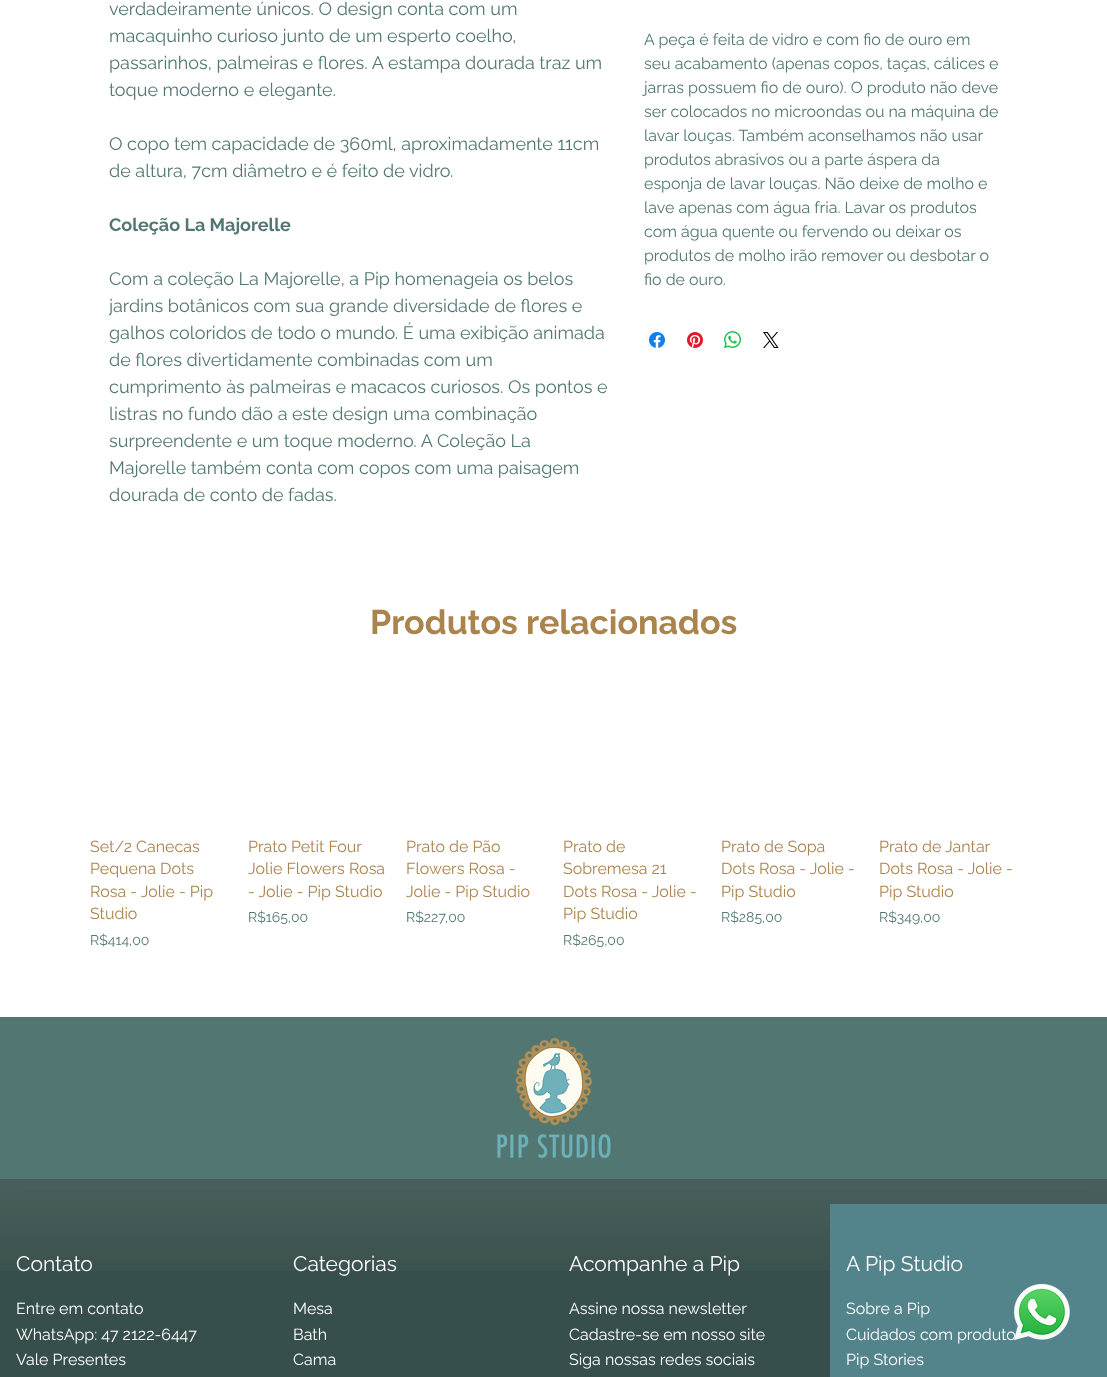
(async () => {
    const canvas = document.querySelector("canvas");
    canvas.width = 1107;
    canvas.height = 1377;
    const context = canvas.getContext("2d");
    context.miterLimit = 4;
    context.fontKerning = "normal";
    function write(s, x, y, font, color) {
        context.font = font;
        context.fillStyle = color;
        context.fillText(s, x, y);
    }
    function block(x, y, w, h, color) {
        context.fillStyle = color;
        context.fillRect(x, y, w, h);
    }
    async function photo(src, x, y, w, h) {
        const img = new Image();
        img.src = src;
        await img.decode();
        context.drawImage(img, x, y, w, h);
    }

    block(0, 0, 1107, 1377, "rgb(255, 255, 255)");
    write("verdadeiramente únicos. O design conta com um", 109, 15, "18px Raleway", "rgb(82, 119, 114)");
    write("macaquinho curioso junto de um esperto coelho,", 109, 42, "18px Raleway", "rgb(82, 119, 114)");
    write("passarinhos, palmeiras e flores. A estampa dourada traz um", 109, 69, "18px Raleway", "rgb(82, 119, 114)");
    write("toque moderno e elegante.", 109, 96, "18px Raleway", "rgb(82, 119, 114)");
    write("O copo tem capacidade de 360ml, aproximadamente 11cm", 109, 150, "18px Raleway", "rgb(82, 119, 114)");
    write("de altura, 7cm diâmetro e é feito de vidro.", 109, 177, "18px Raleway", "rgb(82, 119, 114)");
    write("Coleção La Majorelle", 109, 231, "bold 18px Raleway", "rgb(82, 119, 114)");
    write("Com a coleção La Majorelle, a Pip homenageia os belos", 109, 285, "18px Raleway", "rgb(82, 119, 114)");
    context.save();
    context.beginPath();
    context.rect(109, 0, 500, 508);
    context.clip();
    write("jardins botânicos com sua grande diversidade de flores e", 109, 312, "18px Raleway", "rgb(82, 119, 114)");
    context.restore();
    write("galhos coloridos de todo o mundo. É uma exibição animada", 109, 339, "18px Raleway", "rgb(82, 119, 114)");
    write("de flores divertidamente combinadas com um", 109, 366, "18px Raleway", "rgb(82, 119, 114)");
    write("cumprimento às palmeiras e macacos curiosos. Os pontos e", 109, 393, "18px Raleway", "rgb(82, 119, 114)");
    write("listras no fundo dão a este design uma combinação", 109, 420, "18px Raleway", "rgb(82, 119, 114)");
    write("surpreendente e um toque moderno. A Coleção La", 109, 447, "18px Raleway", "rgb(82, 119, 114)");
    write("Majorelle também conta com copos com uma paisagem", 109, 474, "18px Raleway", "rgb(82, 119, 114)");
    write("dourada de conto de fadas.", 109, 501, "18px Raleway", "rgb(82, 119, 114)");
    write("A peça é feita de vidro e com fio de ouro em", 644, 45, "16px Raleway", "rgb(82, 119, 114)");
    write("seu acabamento (apenas copos, taças, cálices e", 644, 69, "16px Raleway", "rgb(82, 119, 114)");
    write("jarras possuem fio de ouro). O produto não deve", 644, 93, "16px Raleway", "rgb(82, 119, 114)");
    write("ser colocados no microondas ou na máquina de", 644, 117, "16px Raleway", "rgb(82, 119, 114)");
    write("lavar louças. Também aconselhamos não usar", 644, 141, "16px Raleway", "rgb(82, 119, 114)");
    write("produtos abrasivos ou a parte áspera da", 644, 165, "16px Raleway", "rgb(82, 119, 114)");
    write("esponja de lavar louças. Não deixe de molho e", 644, 189, "16px Raleway", "rgb(82, 119, 114)");
    write("lave apenas com água fria. Lavar os produtos", 644, 213, "16px Raleway", "rgb(82, 119, 114)");
    write("com água quente ou fervendo ou deixar os", 644, 237, "16px Raleway", "rgb(82, 119, 114)");
    write("produtos de molho irão remover ou desbotar o", 644, 261, "16px Raleway", "rgb(82, 119, 114)");
    write("fio de ouro.", 644, 285, "16px Raleway", "rgb(82, 119, 114)");
    await photo("media/1.png", 649, 332, 16, 16);
    await photo("media/2.png", 687, 332, 16, 16);
    await photo("media/3.png", 724, 331, 17, 17);
    await photo("media/4.png", 763, 332, 16, 16);
    write("Produtos relacionados", 370, 634, "bold 34px Raleway", "rgb(171, 131, 76)");
    write("Set/2 Canecas", 90, 852, "16px Raleway", "rgb(171, 131, 76)");
    write("Pequena Dots", 90, 874, "16px Raleway", "rgb(171, 131, 76)");
    write("Rosa - Jolie - Pip", 90, 897, "16px Raleway", "rgb(171, 131, 76)");
    write("Studio", 90, 919, "16px Raleway", "rgb(171, 131, 76)");
    write("R$414,00", 90, 945, "14px Raleway", "rgb(82, 119, 114)");
    write("Prato Petit Four", 248, 852, "16px Raleway", "rgb(171, 131, 76)");
    write("Jolie Flowers Rosa", 248, 874, "16px Raleway", "rgb(171, 131, 76)");
    write("- Jolie - Pip Studio", 248, 897, "16px Raleway", "rgb(171, 131, 76)");
    write("R$165,00", 248, 922, "14px Raleway", "rgb(82, 119, 114)");
    write("Prato de Pão", 406, 852, "16px Raleway", "rgb(171, 131, 76)");
    write("Flowers Rosa -", 406, 874, "16px Raleway", "rgb(171, 131, 76)");
    write("Jolie - Pip Studio", 406, 897, "16px Raleway", "rgb(171, 131, 76)");
    write("R$227,00", 406, 922, "14px Raleway", "rgb(82, 119, 114)");
    write("Prato de", 563, 852, "16px Raleway", "rgb(171, 131, 76)");
    write("Sobremesa 21", 563, 874, "16px Raleway", "rgb(171, 131, 76)");
    write("Dots Rosa - Jolie -", 563, 897, "16px Raleway", "rgb(171, 131, 76)");
    write("Pip Studio", 563, 919, "16px Raleway", "rgb(171, 131, 76)");
    write("R$265,00", 563, 945, "14px Raleway", "rgb(82, 119, 114)");
    write("Prato de Sopa", 721, 852, "16px Raleway", "rgb(171, 131, 76)");
    write("Dots Rosa - Jolie -", 721, 874, "16px Raleway", "rgb(171, 131, 76)");
    write("Pip Studio", 721, 897, "16px Raleway", "rgb(171, 131, 76)");
    write("R$285,00", 721, 922, "14px Raleway", "rgb(82, 119, 114)");
    write("Prato de Jantar", 879, 852, "16px Raleway", "rgb(171, 131, 76)");
    write("Dots Rosa - Jolie -", 879, 874, "16px Raleway", "rgb(171, 131, 76)");
    write("Pip Studio", 879, 897, "16px Raleway", "rgb(171, 131, 76)");
    write("R$349,00", 879, 922, "14px Raleway", "rgb(82, 119, 114)");
    block(0, 1179, 1107, 198, "rgb(55, 79, 76)");
    await photo("media/5.png", 0, 1179, 1107, 92);
    block(0, 1017, 1107, 162, "rgb(82, 119, 114)");
    await photo("media/6.png", 497, 1038, 114, 120);
    block(20, 1191, 1067, 1, "rgb(85, 85, 85)");
    write("Contato", 16, 1271, "21px Raleway", "rgb(255, 255, 255)");
    write("Entre em contato", 16, 1314, "16px Raleway", "rgb(255, 255, 255)");
    write("WhatsApp: 47 2122-6447", 16, 1340, "16px Raleway", "rgb(255, 255, 255)");
    write("Vale Presentes", 16, 1365, "16px Raleway", "rgb(255, 255, 255)");
    write("Categorias", 293, 1271, "21px Raleway", "rgb(255, 255, 255)");
    write("Mesa", 293, 1314, "16px Raleway", "rgb(255, 255, 255)");
    write("Bath", 293, 1340, "16px Raleway", "rgb(255, 255, 255)");
    write("Cama", 293, 1365, "16px Raleway", "rgb(255, 255, 255)");
    write("Acompanhe a Pip", 569, 1271, "21px Raleway", "rgb(255, 255, 255)");
    write("Assine nossa newsletter", 569, 1314, "16px Raleway", "rgb(255, 255, 255)");
    write("Cadastre-se em nosso site", 569, 1340, "16px Raleway", "rgb(255, 255, 255)");
    write("Siga nossas redes sociais", 569, 1365, "16px Raleway", "rgb(255, 255, 255)");
    block(830, 1204, 277, 173, "rgb(84, 132, 139)");
    write("A Pip Studio", 846, 1271, "21px Raleway", "rgb(255, 255, 255)");
    write("Sobre a Pip", 846, 1314, "16px Raleway", "rgb(255, 255, 255)");
    write("Cuidados com produto", 846, 1340, "16px Raleway", "rgb(255, 255, 255)");
    write("Pip Stories", 846, 1365, "16px Raleway", "rgb(255, 255, 255)");
    await photo("media/7.png", 1013, 1283, 57, 58);
})();
